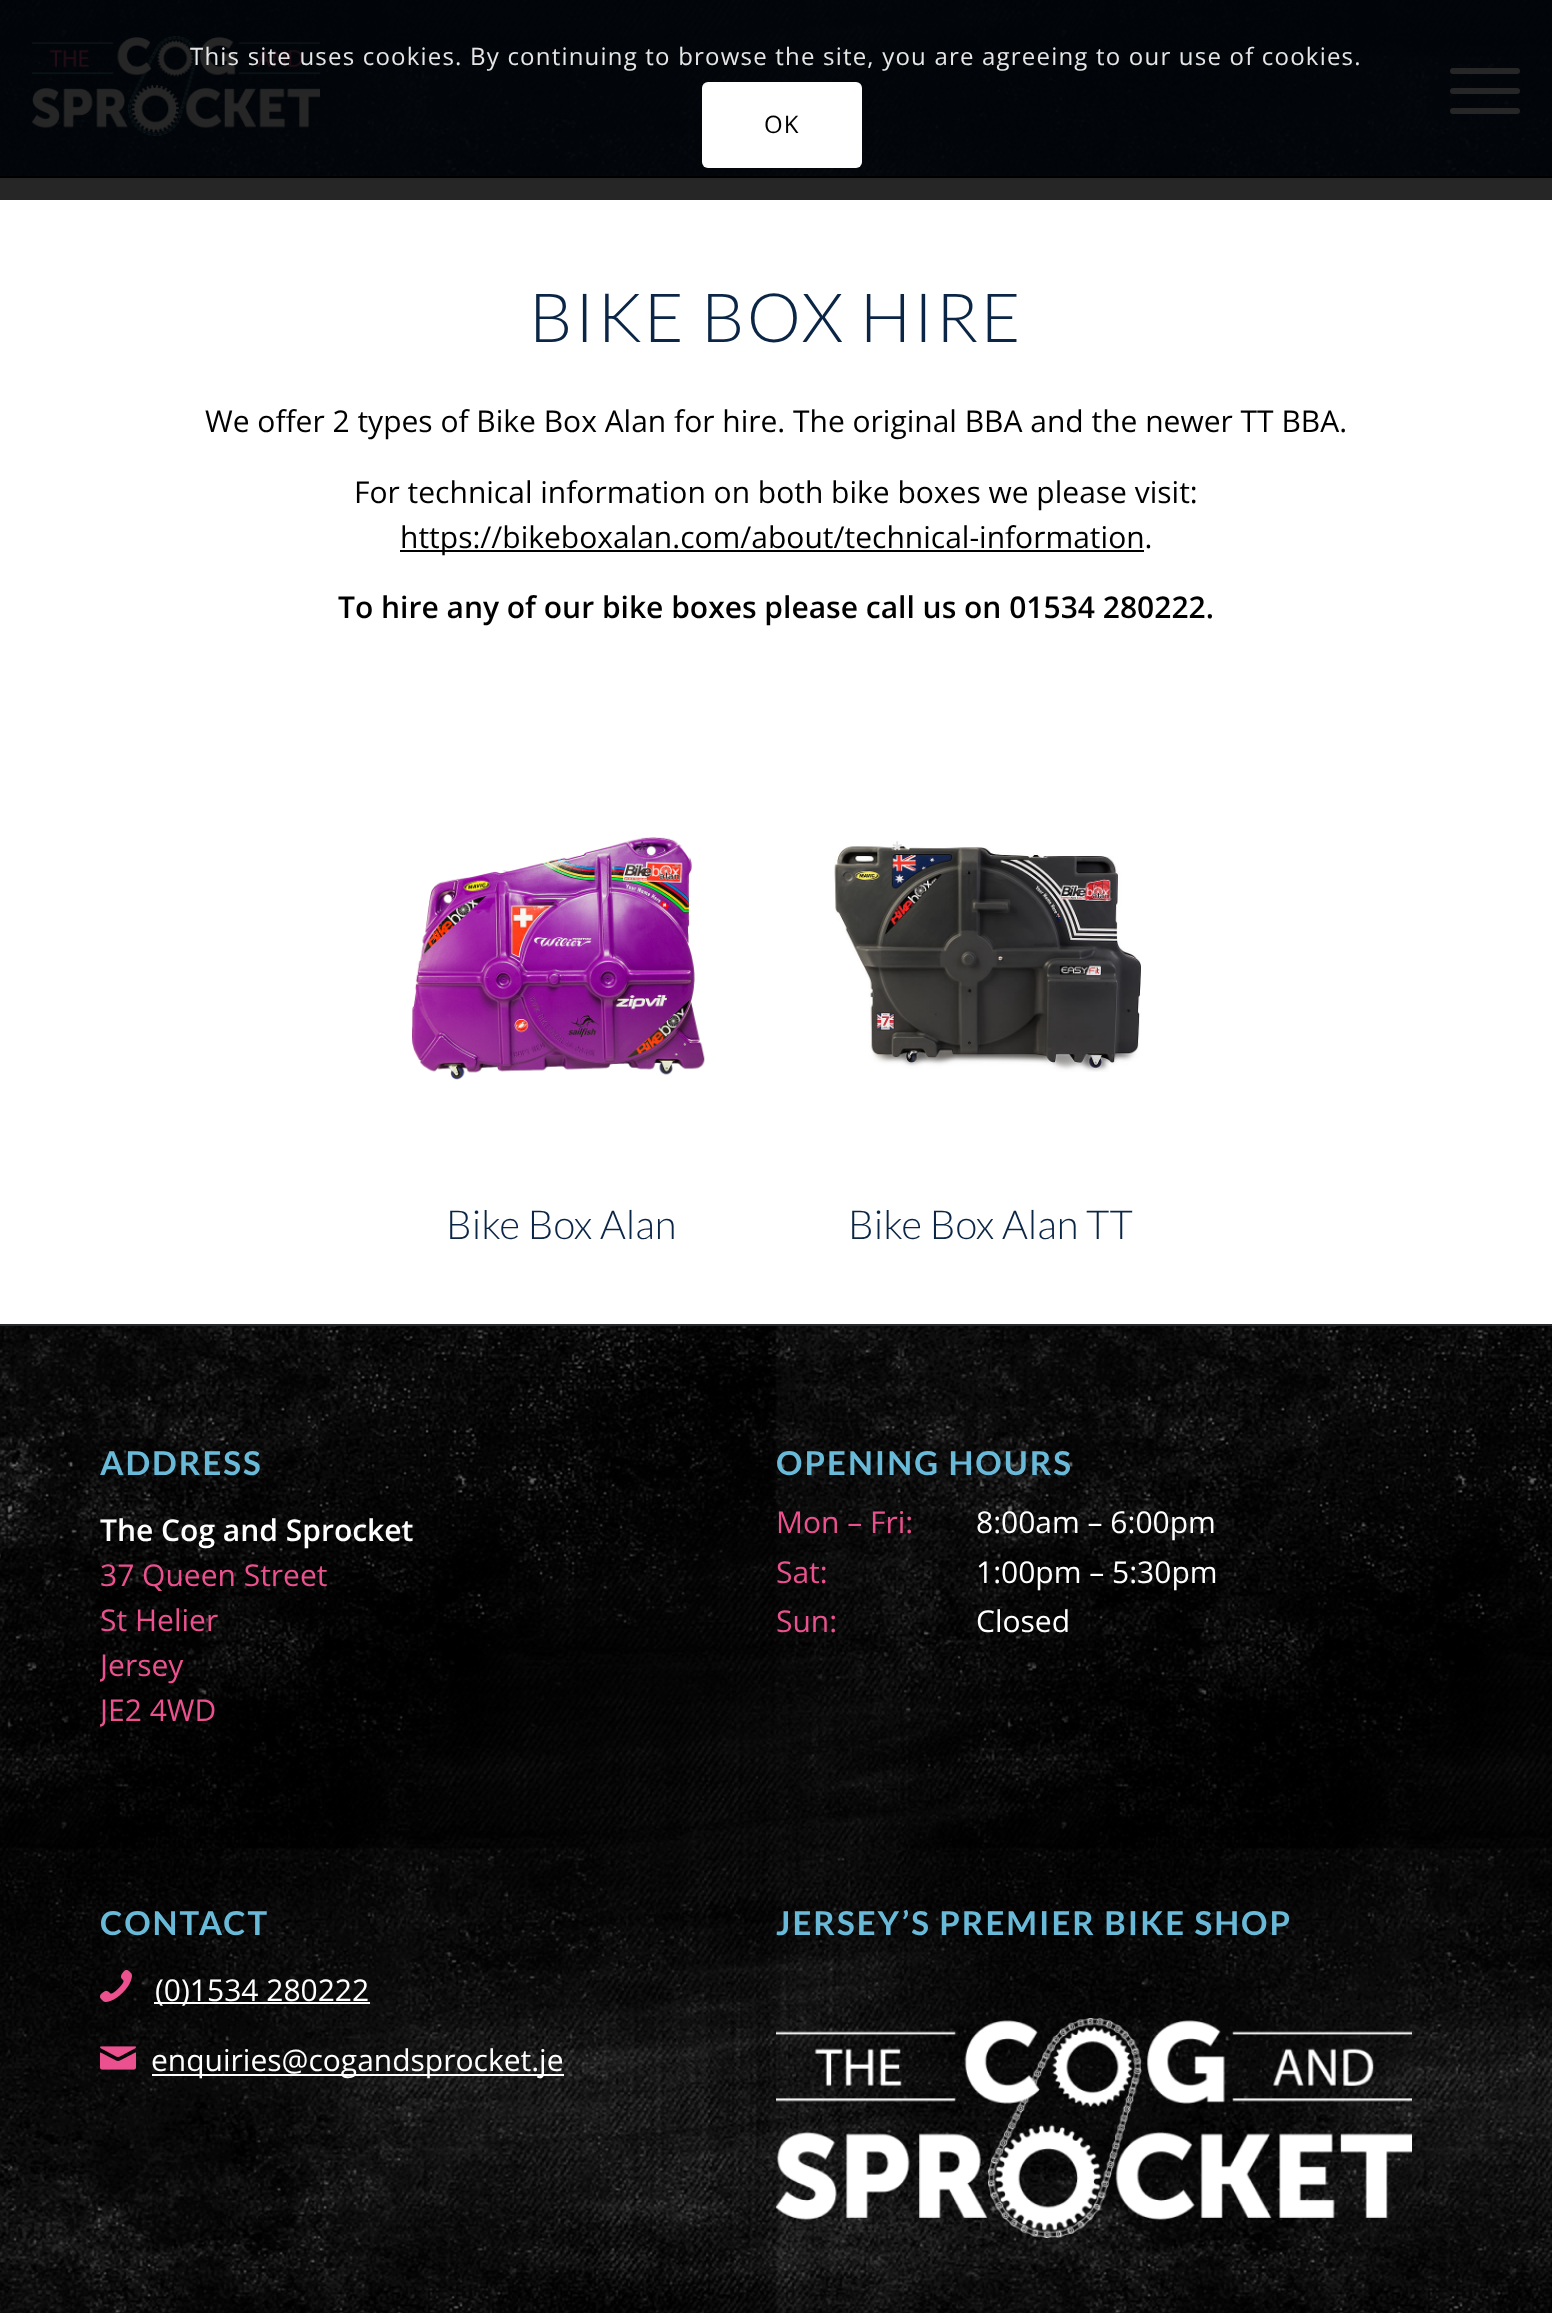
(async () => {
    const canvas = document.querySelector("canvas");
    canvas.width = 1552;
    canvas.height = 2313;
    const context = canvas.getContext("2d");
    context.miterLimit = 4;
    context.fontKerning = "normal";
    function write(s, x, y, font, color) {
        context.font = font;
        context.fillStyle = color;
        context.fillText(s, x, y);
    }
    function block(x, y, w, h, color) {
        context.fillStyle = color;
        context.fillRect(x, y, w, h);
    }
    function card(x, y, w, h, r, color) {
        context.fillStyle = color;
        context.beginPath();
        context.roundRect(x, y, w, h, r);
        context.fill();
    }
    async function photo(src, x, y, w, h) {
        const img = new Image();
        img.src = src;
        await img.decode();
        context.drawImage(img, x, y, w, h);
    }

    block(0, 0, 1552, 2313, "rgb(255, 255, 255)");
    block(0, 0, 1552, 176, "rgb(2, 6, 10)");
    await photo("media/1.png", 0, 0, 1552, 176);
    await photo("media/2.png", 32, 36, 288, 100);
    context.letterSpacing = "1.2px";
    write("This site uses cookies. By continuing to browse the site, you are agreeing to our use of cookies.", 190, 65, "24px Open Sans", "rgb(230, 230, 231)");
    card(702, 82, 160, 86, 6, "rgb(255, 255, 255)");
    write("OK", 764, 133, "24px Open Sans", "rgb(0, 0, 0)");
    block(0, 176, 1552, 2, "rgb(0, 0, 0)");
    card(1450, 88, 70, 6, 3, "rgb(38, 38, 38)");
    card(1450, 68, 70, 6, 3, "rgb(38, 38, 38)");
    card(1450, 108, 70, 6, 3, "rgb(38, 38, 38)");
    block(0, 178, 1552, 22, "rgb(38, 38, 38)");
    context.letterSpacing = "2px";
    write("BIKE BOX HIRE", 529, 342, "300 68px Lato", "rgb(10, 37, 69)");
    context.letterSpacing = "0px";
    write("We offer 2 types of Bike Box Alan for hire. The original BBA and the newer TT BBA.", 205, 432, "30px Open Sans", "rgb(0, 0, 0)");
    write("For technical information on both bike boxes we please visit:", 354, 503, "30px Open Sans", "rgb(0, 0, 0)");
    block(400, 550, 744, 2, "rgb(0, 0, 0)");
    write("https://bikeboxalan.com/about/technical-information.", 400, 548, "30px Open Sans", "rgb(0, 0, 0)");
    write("To hire any of our bike boxes please call us on 01534 280222.", 338, 618, "600 30px Open Sans", "rgb(0, 0, 0)");
    await photo("media/3.png", 412, 837, 293, 243);
    write("Bike Box Alan", 446, 1239, "300 40px Lato", "rgb(10, 37, 69)");
    await photo("media/4.png", 834, 846, 307, 226);
    write("Bike Box Alan TT", 848, 1239, "300 40px Lato", "rgb(10, 37, 69)");
    block(0, 1326, 1552, 987, "rgb(0, 0, 0)");
    await photo("media/5.png", 0, 1326, 1552, 987);
    block(0, 1324, 1552, 2, "rgb(40, 43, 46)");
    context.letterSpacing = "2px";
    write("ADDRESS", 100, 1475, "bold 33px Lato", "rgb(105, 186, 216)");
    context.letterSpacing = "0px";
    write("The Cog and Sprocket", 100, 1541, "600 30px Open Sans", "rgb(255, 255, 255)");
    write("37 Queen Street", 100, 1586, "30px Open Sans", "rgb(234, 81, 142)");
    write("St Helier", 100, 1631, "30px Open Sans", "rgb(234, 81, 142)");
    context.save();
    context.beginPath();
    context.rect(100, 1416, 636, 342);
    context.clip();
    write("Jersey", 100, 1676, "30px Open Sans", "rgb(234, 81, 142)");
    write("JE2 4WD", 100, 1721, "30px Open Sans", "rgb(234, 81, 142)");
    context.restore();
    context.letterSpacing = "2px";
    write("OPENING HOURS", 776, 1475, "bold 33px Lato", "rgb(105, 186, 216)");
    context.letterSpacing = "0px";
    write("Mon – Fri:", 776, 1533, "30px Open Sans", "rgb(234, 81, 142)");
    write("8:00am – 6:00pm", 976, 1533, "30px Open Sans", "rgb(255, 255, 255)");
    write("Sat:", 776, 1583, "30px Open Sans", "rgb(234, 81, 142)");
    write("1:00pm – 5:30pm", 976, 1583, "30px Open Sans", "rgb(255, 255, 255)");
    write("Sun:", 776, 1632, "30px Open Sans", "rgb(234, 81, 142)");
    write("Closed", 976, 1632, "30px Open Sans", "rgb(255, 255, 255)");
    context.letterSpacing = "2px";
    write("CONTACT", 100, 1935, "bold 33px Lato", "rgb(105, 186, 216)");
    await photo("media/6.png", 100, 1970, 32, 32);
    block(154, 2002, 216, 2, "rgb(255, 255, 255)");
    context.letterSpacing = "0px";
    write("(0)1534 280222", 155, 2001, "30px Open Sans", "rgb(255, 255, 255)");
    await photo("media/7.png", 100, 2046, 36, 24);
    block(152, 2074, 412, 2, "rgb(255, 255, 255)");
    write("enquiries@cogandsprocket.je", 151, 2071, "30px Open Sans", "rgb(255, 255, 255)");
    context.letterSpacing = "2px";
    write("JERSEY’S PREMIER BIKE SHOP", 776, 1935, "bold 33px Lato", "rgb(105, 186, 216)");
    await photo("media/8.png", 776, 2018, 636, 220);
    context.letterSpacing = "0px";
    write("*", 637, 856, "600 19px Open Sans", "rgb(93, 35, 101)");
    write("*", 892, 856, "600 19px Open Sans", "rgb(225, 224, 222)");
})();
